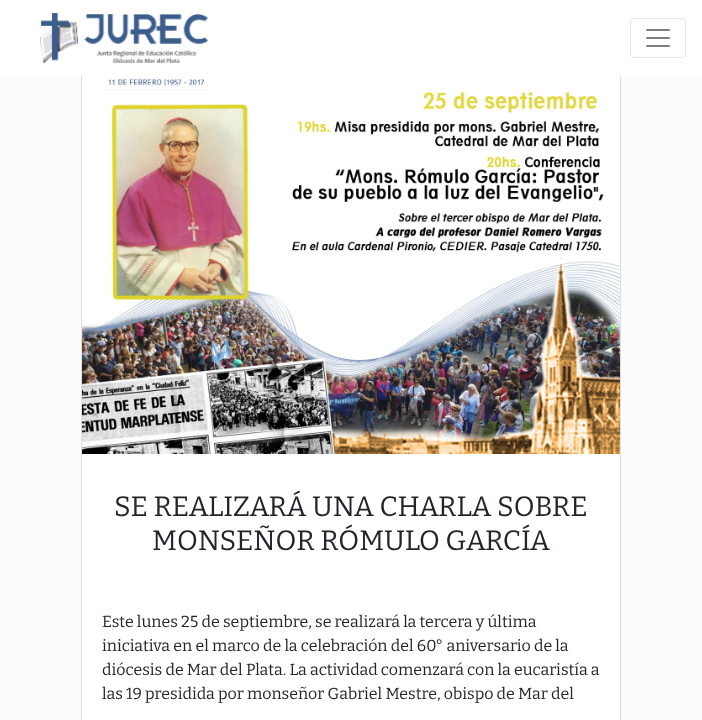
(async () => {
    const canvas = document.querySelector("canvas");
    canvas.width = 702;
    canvas.height = 720;
    const context = canvas.getContext("2d");
    context.miterLimit = 4;
    context.fontKerning = "normal";
    function write(s, x, y, font, color) {
        context.font = font;
        context.fillStyle = color;
        context.fillText(s, x, y);
    }
    function block(x, y, w, h, color) {
        context.fillStyle = color;
        context.fillRect(x, y, w, h);
    }
    async function photo(src, x, y, w, h) {
        const img = new Image();
        img.src = src;
        await img.decode();
        context.drawImage(img, x, y, w, h);
    }

    block(0, 0, 702, 720, "rgb(252, 252, 252)");
    block(82, 454, 538, 266, "rgb(255, 255, 255)");
    context.strokeStyle = "rgb(223, 223, 223)";
    context.strokeRect(81.5, 23.5, 539, 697);
    block(0, 0, 702, 76, "rgb(255, 255, 255)");
    await photo("media/1.png", 40, 13, 168, 50);
    context.beginPath();
    context.roundRect(630.5, 18.5, 55, 39, 3.5);
    context.strokeStyle = "rgb(230, 230, 230)";
    context.stroke();
    await photo("media/2.png", 646, 29, 24, 18);
    await photo("media/3.png", 82, 76, 538, 378);
    write("SE REALIZARÁ UNA CHARLA SOBRE", 114, 516, "100 28px Bitter", "rgb(33, 37, 41)");
    write("MONSEÑOR RÓMULO GARCÍA", 152, 550, "100 28px Bitter", "rgb(33, 37, 41)");
    write("Este lunes 25 de septiembre, se realizará la tercera y última", 102, 627, "100 16px Bitter", "rgb(33, 37, 41)");
    write("iniciativa en el marco de la celebración del 60° aniversario de la", 102, 651, "100 16px Bitter", "rgb(33, 37, 41)");
    write("diócesis de Mar del Plata. La actividad comenzará con la eucaristía a", 102, 675, "100 16px Bitter", "rgb(33, 37, 41)");
    write("las 19 presidida por monseñor Gabriel Mestre, obispo de Mar del", 102, 699, "100 16px Bitter", "rgb(33, 37, 41)");
})();
